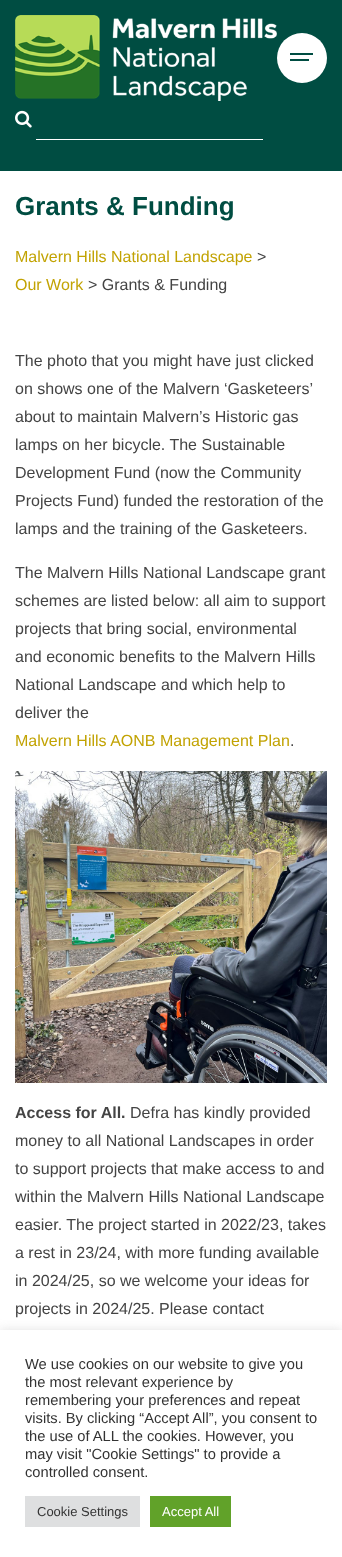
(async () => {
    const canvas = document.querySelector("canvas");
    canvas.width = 342;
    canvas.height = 1557;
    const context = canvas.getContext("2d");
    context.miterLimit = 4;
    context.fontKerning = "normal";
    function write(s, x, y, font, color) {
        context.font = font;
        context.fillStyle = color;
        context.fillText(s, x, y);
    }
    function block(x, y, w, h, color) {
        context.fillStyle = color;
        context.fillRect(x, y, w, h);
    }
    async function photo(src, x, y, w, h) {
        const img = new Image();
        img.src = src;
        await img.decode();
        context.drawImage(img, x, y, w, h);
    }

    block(0, 0, 342, 1557, "rgb(255, 255, 255)");
    block(0, 0, 342, 171, "rgb(0, 77, 66)");
    await photo("media/1.png", 15, 15, 262, 86);
    context.fillStyle = "rgb(255, 255, 255)";
    context.beginPath();
    context.arc(302, 58, 25, 0, Math.PI * 2);
    context.fill();
    block(290, 53, 23, 2, "rgb(0, 77, 66)");
    block(290, 59, 19, 2, "rgb(0, 77, 66)");
    await photo("media/2.png", 15, 110, 17, 18);
    block(36, 139, 227, 1, "rgb(255, 255, 255)");
    write("Grants & Funding", 15, 215, "bold 26px Liberation Sans", "rgb(0, 77, 66)");
    write("Malvern Hills National Landscape", 15, 262, "16px Liberation Sans", "rgb(194, 163, 3)");
    write(">", 257, 262, "16px Liberation Sans", "rgb(68, 68, 68)");
    write("Our Work", 15, 290, "16px Liberation Sans", "rgb(194, 163, 3)");
    write("> Grants & Funding", 88, 290, "16px Liberation Sans", "rgb(68, 68, 68)");
    write("The photo that you might have just clicked", 15, 366, "16px Liberation Sans", "rgb(68, 68, 68)");
    write("on shows one of the Malvern ‘Gasketeers’", 15, 394, "16px Liberation Sans", "rgb(68, 68, 68)");
    write("about to maintain Malvern’s Historic gas", 15, 422, "16px Liberation Sans", "rgb(68, 68, 68)");
    write("lamps on her bicycle. The Sustainable", 15, 450, "16px Liberation Sans", "rgb(68, 68, 68)");
    write("Development Fund (now the Community", 15, 478, "16px Liberation Sans", "rgb(68, 68, 68)");
    write("Projects Fund) funded the restoration of the", 15, 506, "16px Liberation Sans", "rgb(68, 68, 68)");
    write("lamps and the training of the Gasketeers.", 15, 534, "16px Liberation Sans", "rgb(68, 68, 68)");
    write("The Malvern Hills National Landscape grant", 15, 578, "16px Liberation Sans", "rgb(68, 68, 68)");
    write("schemes are listed below: all aim to support", 15, 606, "16px Liberation Sans", "rgb(68, 68, 68)");
    write("projects that bring social, environmental", 15, 634, "16px Liberation Sans", "rgb(68, 68, 68)");
    write("and economic benefits to the Malvern Hills", 15, 662, "16px Liberation Sans", "rgb(68, 68, 68)");
    write("National Landscape and which help to", 15, 690, "16px Liberation Sans", "rgb(68, 68, 68)");
    write("deliver the", 15, 718, "16px Liberation Sans", "rgb(68, 68, 68)");
    write("Malvern Hills AONB Management Plan", 15, 746, "16px Liberation Sans", "rgb(194, 163, 3)");
    write(".", 290, 746, "16px Liberation Sans", "rgb(68, 68, 68)");
    await photo("media/3.png", 15, 771, 312, 312);
    write("Access for All.", 15, 1118, "bold 16px Liberation Sans", "rgb(68, 68, 68)");
    write("Defra has kindly provided", 130, 1118, "16px Liberation Sans", "rgb(68, 68, 68)");
    write("money to all National Landscapes in order", 15, 1146, "16px Liberation Sans", "rgb(68, 68, 68)");
    write("to support projects that make access to and", 15, 1174, "16px Liberation Sans", "rgb(68, 68, 68)");
    write("within the Malvern Hills National Landscape", 15, 1202, "16px Liberation Sans", "rgb(68, 68, 68)");
    write("easier. The project started in 2022/23, takes", 15, 1230, "16px Liberation Sans", "rgb(68, 68, 68)");
    write("a rest in 23/24, with more funding available", 15, 1258, "16px Liberation Sans", "rgb(68, 68, 68)");
    write("in 2024/25, so we welcome your ideas for", 15, 1286, "16px Liberation Sans", "rgb(68, 68, 68)");
    write("projects in 2024/25. Please contact", 15, 1314, "16px Liberation Sans", "rgb(68, 68, 68)");
    context.fillStyle = "rgba(172, 171, 171, 0.3)";
    context.filter = "blur(5px)";
    context.beginPath();
    context.rect(0, 1329, 342, 227);
    context.fill();
    context.filter = "none";
    block(0, 1330, 342, 227, "rgb(255, 255, 255)");
    write("We use cookies on our website to give you", 25, 1369, "14.7px Liberation Sans", "rgb(51, 51, 51)");
    write("the most relevant experience by", 25, 1387, "14.7px Liberation Sans", "rgb(51, 51, 51)");
    write("remembering your preferences and repeat", 25, 1405, "14.7px Liberation Sans", "rgb(51, 51, 51)");
    write("visits. By clicking “Accept All”, you consent to", 25, 1423, "14.7px Liberation Sans", "rgb(51, 51, 51)");
    write("the use of ALL the cookies. However, you", 25, 1441, "14.7px Liberation Sans", "rgb(51, 51, 51)");
    write("may visit \"Cookie Settings\" to provide a", 25, 1459, "14.7px Liberation Sans", "rgb(51, 51, 51)");
    write("controlled consent.", 25, 1477, "14.7px Liberation Sans", "rgb(51, 51, 51)");
    block(25, 1496, 115, 31, "rgb(222, 223, 224)");
    write("Cookie Settings", 37, 1516, "13px Liberation Sans", "rgb(51, 51, 51)");
    block(150, 1496, 81, 31, "rgb(97, 162, 41)");
    write("Accept All", 162, 1516, "13px Liberation Sans", "rgb(255, 255, 255)");
})();
